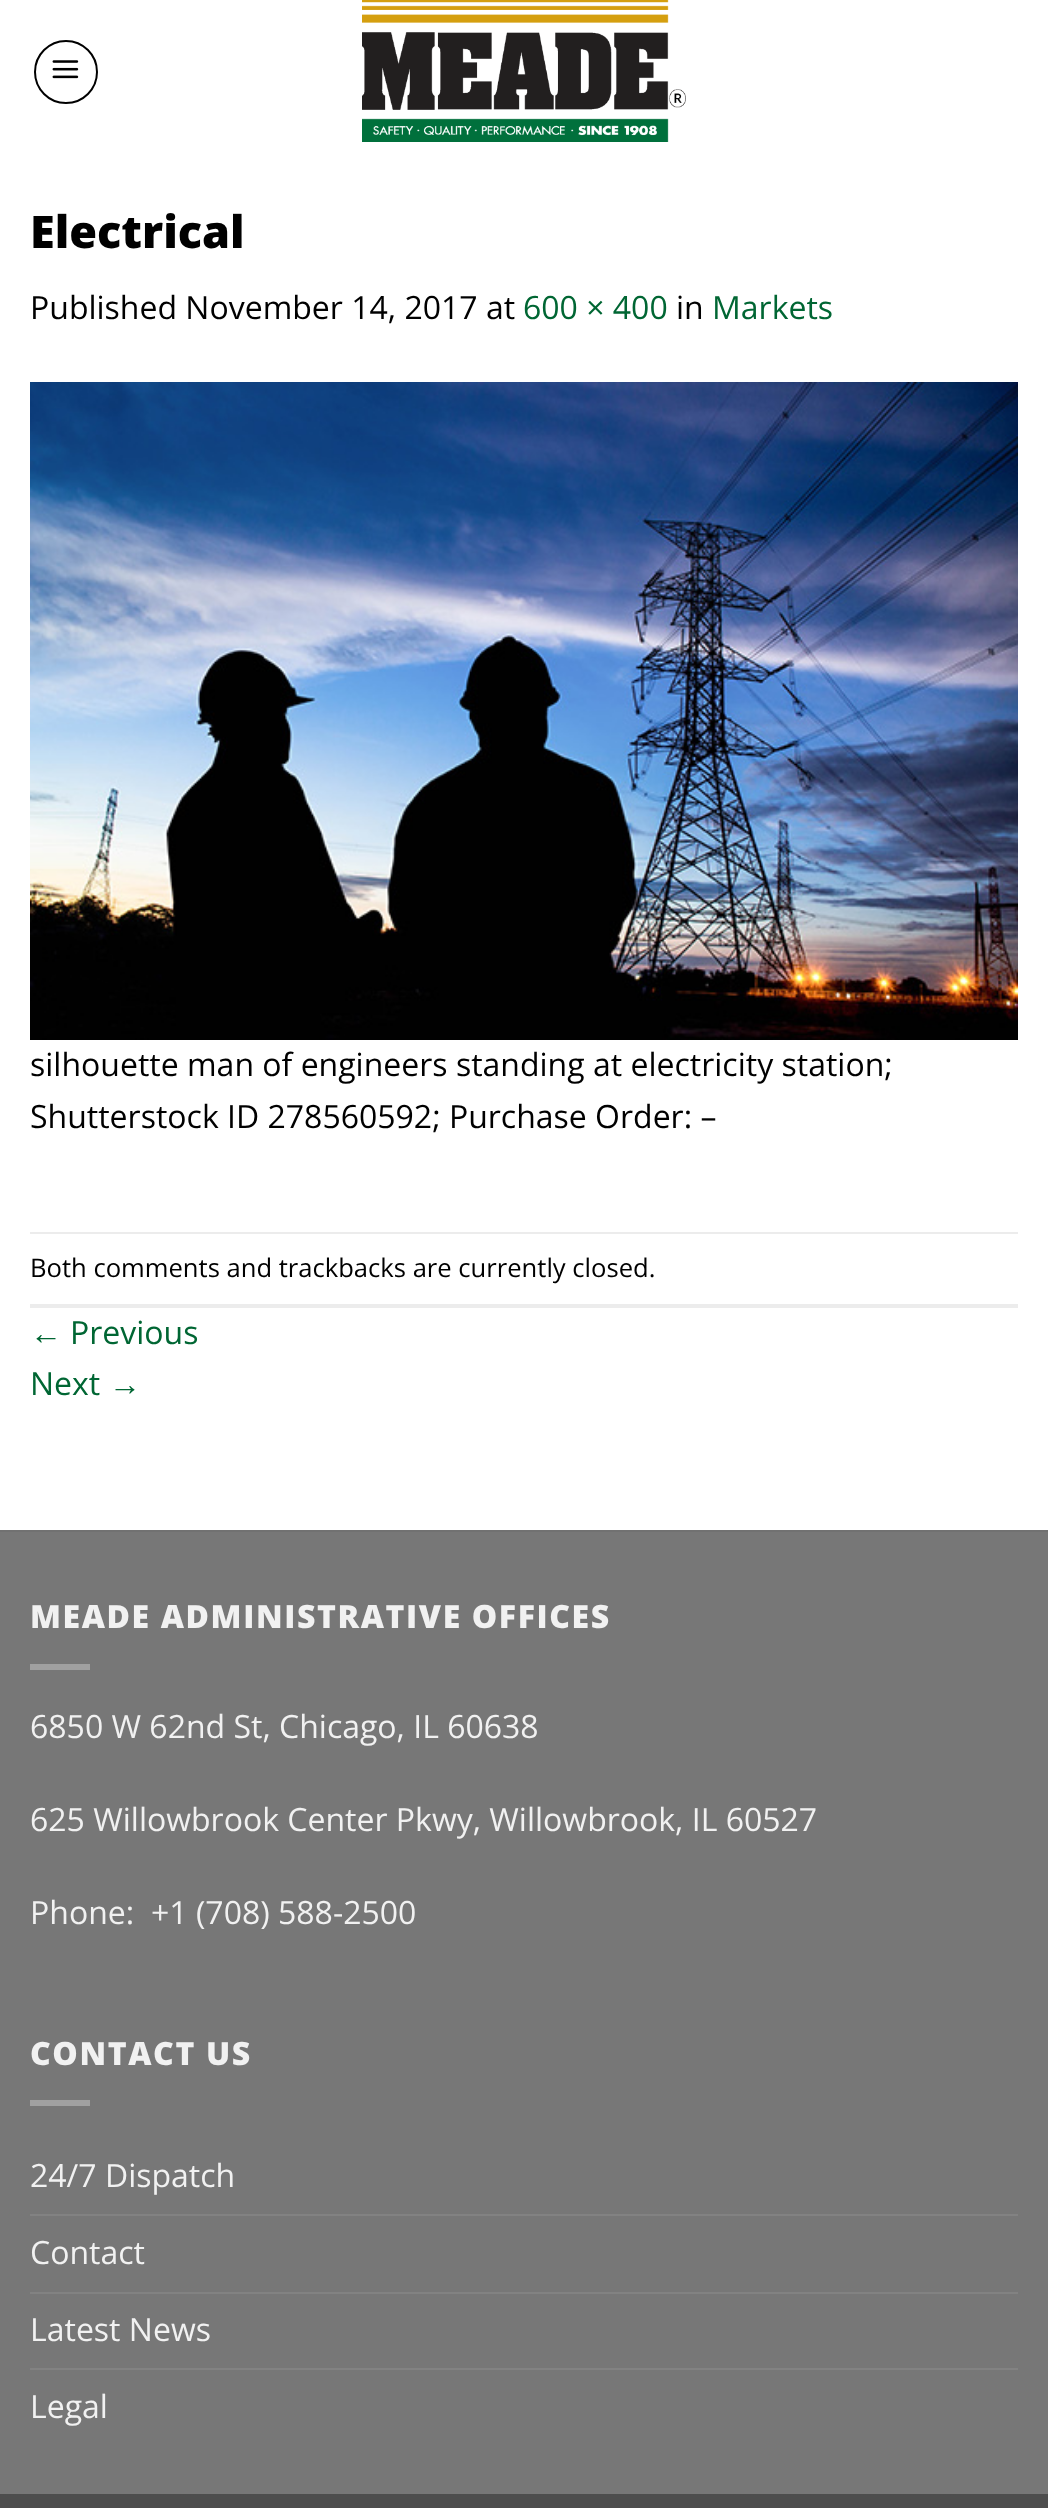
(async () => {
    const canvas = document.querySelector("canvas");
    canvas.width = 1048;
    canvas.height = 2508;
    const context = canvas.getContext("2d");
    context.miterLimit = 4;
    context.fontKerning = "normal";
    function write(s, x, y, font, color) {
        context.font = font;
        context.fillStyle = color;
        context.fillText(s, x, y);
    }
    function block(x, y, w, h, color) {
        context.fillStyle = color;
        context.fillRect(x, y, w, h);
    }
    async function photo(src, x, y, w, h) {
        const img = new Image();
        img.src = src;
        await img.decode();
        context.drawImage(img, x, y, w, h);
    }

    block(0, 0, 1048, 2508, "rgb(255, 255, 255)");
    context.beginPath();
    context.arc(66, 72, 31, 0, Math.PI * 2);
    context.strokeStyle = "rgb(0, 0, 0)";
    context.lineWidth = 2;
    context.stroke();
    await photo("media/1.png", 52, 60, 27, 19);
    await photo("media/2.png", 362, 0, 324, 142);
    write("Electrical", 30, 248, "800 45px Open Sans", "rgb(0, 0, 0)");
    write("Published November 14, 2017 at", 30, 319, "32px Open Sans", "rgb(0, 0, 0)");
    write("600 × 400", 523, 319, "32px Open Sans", "rgb(0, 102, 51)");
    write("in", 676, 319, "32px Open Sans", "rgb(0, 0, 0)");
    write("Markets", 712, 319, "32px Open Sans", "rgb(0, 102, 51)");
    await photo("media/3.png", 30, 382, 988, 658);
    write("silhouette man of engineers standing at electricity station;", 30, 1076, "32px Open Sans", "rgb(0, 0, 0)");
    write("Shutterstock ID 278560592; Purchase Order: –", 30, 1128, "32px Open Sans", "rgb(0, 0, 0)");
    block(30, 1232, 988, 2, "rgb(236, 236, 236)");
    block(30, 1304, 988, 4, "rgb(236, 236, 236)");
    write("Both comments and trackbacks are currently closed.", 30, 1277, "25.6px Open Sans", "rgb(0, 0, 0)");
    write("←", 30, 1344, "32px Liberation Sans", "rgb(0, 102, 51)");
    write("Previous", 70, 1344, "32px Open Sans", "rgb(0, 102, 51)");
    write("Next", 30, 1395, "32px Open Sans", "rgb(0, 102, 51)");
    write("→", 109, 1395, "32px Liberation Sans", "rgb(0, 102, 51)");
    block(0, 1532, 1048, 962, "rgb(119, 119, 119)");
    block(0, 1530, 1048, 2, "rgb(113, 113, 113)");
    context.letterSpacing = "1.6px";
    write("MEADE ADMINISTRATIVE OFFICES", 30, 1628, "800 32px Open Sans", "rgb(241, 241, 241)");
    block(30, 1664, 60, 6, "rgb(160, 160, 160)");
    context.letterSpacing = "0px";
    write("6850 W 62nd St, Chicago, IL 60638", 30, 1738, "32px Open Sans", "rgb(241, 241, 241)");
    write("625 Willowbrook Center Pkwy, Willowbrook, IL 60527", 30, 1831, "32px Open Sans", "rgb(241, 241, 241)");
    write("Phone:", 30, 1924, "32px Open Sans", "rgb(241, 241, 241)");
    write("+1 (708) 588-2500", 151, 1924, "32px Open Sans", "rgb(241, 241, 241)");
    context.letterSpacing = "1.6px";
    write("CONTACT US", 30, 2065, "800 32px Open Sans", "rgb(241, 241, 241)");
    block(30, 2100, 60, 6, "rgb(160, 160, 160)");
    context.letterSpacing = "0px";
    write("24/7 Dispatch", 30, 2187, "32px Open Sans", "rgb(241, 241, 241)");
    block(30, 2214, 988, 2, "rgb(130, 130, 130)");
    write("Contact", 30, 2264, "32px Open Sans", "rgb(241, 241, 241)");
    block(30, 2292, 988, 2, "rgb(130, 130, 130)");
    write("Latest News", 30, 2341, "32px Open Sans", "rgb(241, 241, 241)");
    block(30, 2368, 988, 2, "rgb(130, 130, 130)");
    write("Legal", 30, 2418, "32px Open Sans", "rgb(241, 241, 241)");
    block(0, 2494, 1048, 14, "rgb(77, 77, 77)");
})();
